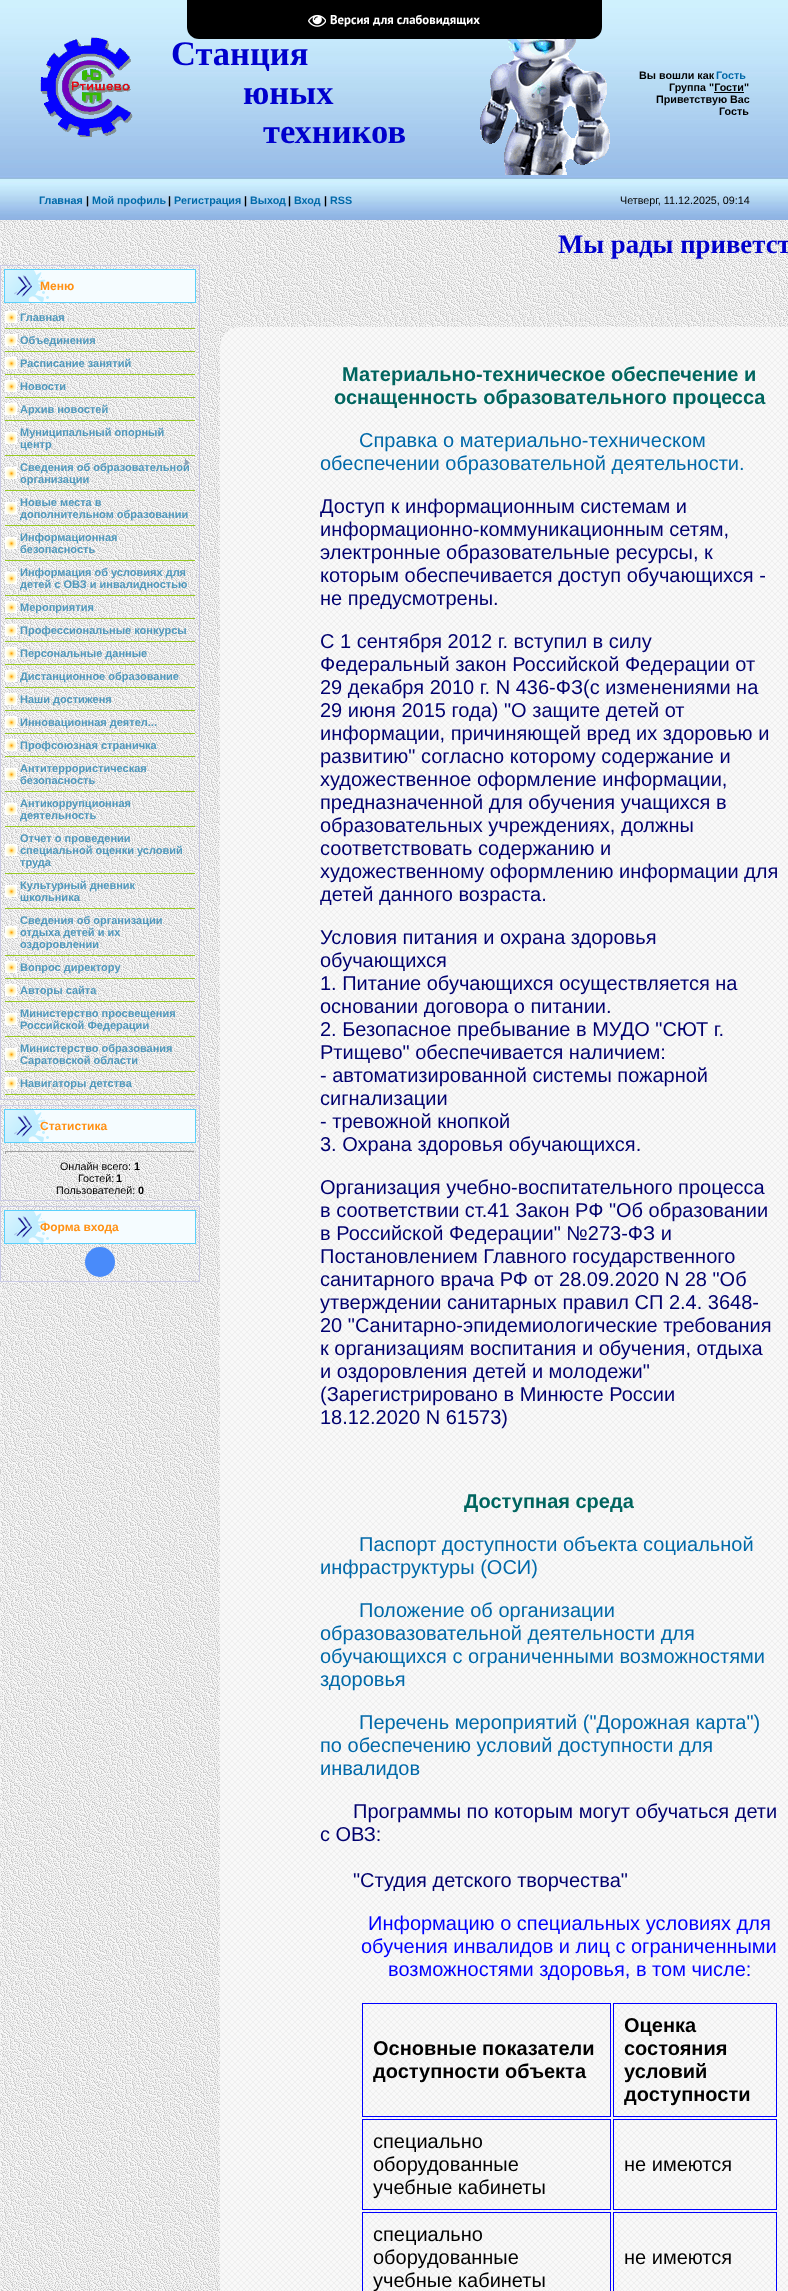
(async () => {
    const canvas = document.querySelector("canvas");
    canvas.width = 788;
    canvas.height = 2291;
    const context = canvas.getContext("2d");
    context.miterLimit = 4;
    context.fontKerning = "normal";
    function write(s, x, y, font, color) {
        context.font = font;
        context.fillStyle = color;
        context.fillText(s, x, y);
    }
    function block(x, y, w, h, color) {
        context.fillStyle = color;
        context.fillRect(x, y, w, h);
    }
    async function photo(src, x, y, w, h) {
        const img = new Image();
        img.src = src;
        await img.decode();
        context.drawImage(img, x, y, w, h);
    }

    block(0, 0, 788, 2291, "rgb(255, 255, 255)");
    await photo("media/1.png", 0, 220, 788, 2071);
    await photo("media/3.png", 0, 0, 788, 220);
    context.fillStyle = "rgb(0, 0, 0)";
    context.beginPath();
    context.roundRect(187, 0, 415, 39, [0, 0, 12, 12]);
    context.fill();
    await photo("media/2.png", 308, 14, 18, 13);
    write("Версия для слабовидящих", 330, 24, "bold 12.75px PT Sans", "rgb(255, 255, 255)");
    await photo("media/4.png", 40, 37, 93, 100);
    write("Станция", 171, 65, "bold 34.5px Liberation Serif", "rgb(0, 0, 205)");
    write("юных", 243, 104, "bold 34.5px Liberation Serif", "rgb(0, 0, 205)");
    write("техников", 263, 143, "bold 34.5px Liberation Serif", "rgb(0, 0, 205)");
    await photo("media/5.png", 480, 39, 130, 136);
    write("Вы вошли как", 639, 79, "bold 10.75px Liberation Sans", "rgb(0, 0, 0)");
    write("Гость", 716, 79, "bold 10.75px Liberation Sans", "rgb(0, 105, 169)");
    write("Группа \"Гости\"", 669, 91, "bold 10.75px Liberation Sans", "rgb(0, 0, 0)");
    block(714, 92, 30, 1, "rgb(0, 0, 0)");
    write("Приветствую Вас", 656, 103, "bold 10.75px Liberation Sans", "rgb(0, 0, 0)");
    write("Гость", 719, 115, "bold 10.75px Liberation Sans", "rgb(0, 0, 0)");
    write("Главная", 39, 204, "bold 10.75px Liberation Sans", "rgb(0, 105, 169)");
    write("|", 86, 204, "bold 10.75px Liberation Sans", "rgb(0, 0, 0)");
    write("Мой профиль", 92, 204, "bold 10.75px Liberation Sans", "rgb(0, 105, 169)");
    write("|", 168, 204, "bold 10.75px Liberation Sans", "rgb(0, 0, 0)");
    write("Регистрация", 174, 204, "bold 10.75px Liberation Sans", "rgb(0, 105, 169)");
    write("|", 244, 204, "bold 10.75px Liberation Sans", "rgb(0, 0, 0)");
    write("Выход", 250, 204, "bold 10.75px Liberation Sans", "rgb(0, 105, 169)");
    write("|", 288, 204, "bold 10.75px Liberation Sans", "rgb(0, 0, 0)");
    write("Вход", 294, 204, "bold 10.75px Liberation Sans", "rgb(0, 105, 169)");
    write("|", 324, 204, "bold 10.75px Liberation Sans", "rgb(0, 0, 0)");
    write("RSS", 330, 204, "bold 10.75px Liberation Sans", "rgb(0, 105, 169)");
    write("Четверг, 11.12.2025, 09:14", 620, 204, "10.75px Liberation Sans", "rgb(0, 0, 0)");
    write("Мы рады приветст", 558, 253, "bold 26.75px Liberation Serif", "rgb(0, 0, 205)");
    context.strokeStyle = "rgb(202, 202, 230)";
    context.strokeRect(0.5, 265.5, 199, 834);
    block(49, 270, 146, 32, "rgb(245, 252, 255)");
    await photo("media/6.png", 5, 270, 44, 32);
    context.strokeStyle = "rgb(91, 209, 252)";
    context.strokeRect(4.5, 269.5, 191, 33);
    write("Меню", 40, 290, "bold 12px Liberation Sans", "rgb(255, 145, 21)");
    await photo("media/7.png", 5, 311, 12, 12);
    block(5, 328, 190, 1, "rgb(151, 200, 33)");
    write("Главная", 20, 321, "bold 11px Liberation Sans", "rgb(79, 152, 188)");
    await photo("media/7.png", 5, 334, 12, 12);
    block(5, 351, 190, 1, "rgb(151, 200, 33)");
    write("Объединения", 20, 344, "bold 11px Liberation Sans", "rgb(79, 152, 188)");
    await photo("media/7.png", 5, 357, 12, 12);
    block(5, 374, 190, 1, "rgb(151, 200, 33)");
    write("Расписание занятий", 20, 367, "bold 11px Liberation Sans", "rgb(79, 152, 188)");
    await photo("media/7.png", 5, 380, 12, 12);
    block(5, 397, 190, 1, "rgb(151, 200, 33)");
    write("Новости", 20, 390, "bold 11px Liberation Sans", "rgb(79, 152, 188)");
    await photo("media/7.png", 5, 403, 12, 12);
    block(5, 420, 190, 1, "rgb(151, 200, 33)");
    write("Архив новостей", 20, 413, "bold 11px Liberation Sans", "rgb(79, 152, 188)");
    await photo("media/7.png", 5, 432, 12, 12);
    block(5, 455, 190, 1, "rgb(151, 200, 33)");
    write("Муниципальный опорный", 20, 436, "bold 11px Liberation Sans", "rgb(79, 152, 188)");
    write("центр", 20, 448, "bold 11px Liberation Sans", "rgb(79, 152, 188)");
    await photo("media/7.png", 5, 467, 12, 12);
    block(5, 490, 190, 1, "rgb(151, 200, 33)");
    write("Сведения об образовательной", 20, 471, "bold 11px Liberation Sans", "rgb(79, 152, 188)");
    await photo("media/8.png", 185, 459, 4, 7);
    write("организации", 20, 483, "bold 11px Liberation Sans", "rgb(79, 152, 188)");
    await photo("media/7.png", 5, 502, 12, 12);
    block(5, 525, 190, 1, "rgb(151, 200, 33)");
    write("Новые места в", 20, 506, "bold 11px Liberation Sans", "rgb(79, 152, 188)");
    write("дополнительном образовании", 20, 518, "bold 11px Liberation Sans", "rgb(79, 152, 188)");
    await photo("media/7.png", 5, 537, 12, 12);
    block(5, 560, 190, 1, "rgb(151, 200, 33)");
    write("Информационная", 20, 541, "bold 11px Liberation Sans", "rgb(79, 152, 188)");
    write("безопасность", 20, 553, "bold 11px Liberation Sans", "rgb(79, 152, 188)");
    await photo("media/7.png", 5, 572, 12, 12);
    block(5, 595, 190, 1, "rgb(151, 200, 33)");
    write("Информация об условиях для", 20, 576, "bold 11px Liberation Sans", "rgb(79, 152, 188)");
    write("детей с ОВЗ и инвалидностью", 20, 588, "bold 11px Liberation Sans", "rgb(79, 152, 188)");
    await photo("media/7.png", 5, 601, 12, 12);
    block(5, 618, 190, 1, "rgb(151, 200, 33)");
    write("Мероприятия", 20, 611, "bold 11px Liberation Sans", "rgb(79, 152, 188)");
    await photo("media/7.png", 5, 624, 12, 12);
    block(5, 641, 190, 1, "rgb(151, 200, 33)");
    write("Профессиональные конкурсы", 20, 634, "bold 11px Liberation Sans", "rgb(79, 152, 188)");
    await photo("media/7.png", 5, 647, 12, 12);
    block(5, 664, 190, 1, "rgb(151, 200, 33)");
    write("Персональные данные", 20, 657, "bold 11px Liberation Sans", "rgb(79, 152, 188)");
    await photo("media/7.png", 5, 670, 12, 12);
    block(5, 687, 190, 1, "rgb(151, 200, 33)");
    write("Дистанционное образование", 20, 680, "bold 11px Liberation Sans", "rgb(79, 152, 188)");
    await photo("media/7.png", 5, 693, 12, 12);
    block(5, 710, 190, 1, "rgb(151, 200, 33)");
    write("Наши достиженя", 20, 703, "bold 11px Liberation Sans", "rgb(79, 152, 188)");
    await photo("media/7.png", 5, 716, 12, 12);
    block(5, 733, 190, 1, "rgb(151, 200, 33)");
    write("Инновационная деятел...", 20, 726, "bold 11px Liberation Sans", "rgb(79, 152, 188)");
    await photo("media/7.png", 5, 739, 12, 12);
    block(5, 756, 190, 1, "rgb(151, 200, 33)");
    write("Профсоюзная страничка", 20, 749, "bold 11px Liberation Sans", "rgb(79, 152, 188)");
    await photo("media/7.png", 5, 768, 12, 12);
    block(5, 791, 190, 1, "rgb(151, 200, 33)");
    write("Антитеррористическая", 20, 772, "bold 11px Liberation Sans", "rgb(79, 152, 188)");
    write("безопасность", 20, 784, "bold 11px Liberation Sans", "rgb(79, 152, 188)");
    await photo("media/7.png", 5, 803, 12, 12);
    block(5, 826, 190, 1, "rgb(151, 200, 33)");
    write("Антикоррупционная", 20, 807, "bold 11px Liberation Sans", "rgb(79, 152, 188)");
    write("деятельность", 20, 819, "bold 11px Liberation Sans", "rgb(79, 152, 188)");
    await photo("media/7.png", 5, 844, 12, 12);
    block(5, 873, 190, 1, "rgb(151, 200, 33)");
    write("Отчет о проведении", 20, 842, "bold 11px Liberation Sans", "rgb(79, 152, 188)");
    write("специальной оценки условий", 20, 854, "bold 11px Liberation Sans", "rgb(79, 152, 188)");
    write("труда", 20, 866, "bold 11px Liberation Sans", "rgb(79, 152, 188)");
    await photo("media/7.png", 5, 885, 12, 12);
    block(5, 908, 190, 1, "rgb(151, 200, 33)");
    write("Культурный дневник", 20, 889, "bold 11px Liberation Sans", "rgb(79, 152, 188)");
    write("школьника", 20, 901, "bold 11px Liberation Sans", "rgb(79, 152, 188)");
    await photo("media/7.png", 5, 926, 12, 12);
    block(5, 955, 190, 1, "rgb(151, 200, 33)");
    write("Сведения об организации", 20, 924, "bold 11px Liberation Sans", "rgb(79, 152, 188)");
    write("отдыха детей и их", 20, 936, "bold 11px Liberation Sans", "rgb(79, 152, 188)");
    write("оздоровлении", 20, 948, "bold 11px Liberation Sans", "rgb(79, 152, 188)");
    await photo("media/7.png", 5, 961, 12, 12);
    block(5, 978, 190, 1, "rgb(151, 200, 33)");
    write("Вопрос директору", 20, 971, "bold 11px Liberation Sans", "rgb(79, 152, 188)");
    await photo("media/7.png", 5, 984, 12, 12);
    block(5, 1001, 190, 1, "rgb(151, 200, 33)");
    write("Авторы сайта", 20, 994, "bold 11px Liberation Sans", "rgb(79, 152, 188)");
    await photo("media/7.png", 5, 1013, 12, 12);
    block(5, 1036, 190, 1, "rgb(151, 200, 33)");
    write("Министерство просвещения", 20, 1017, "bold 11px Liberation Sans", "rgb(79, 152, 188)");
    write("Российской Федерации", 20, 1029, "bold 11px Liberation Sans", "rgb(79, 152, 188)");
    await photo("media/7.png", 5, 1048, 12, 12);
    block(5, 1071, 190, 1, "rgb(151, 200, 33)");
    write("Министерство образования", 20, 1052, "bold 11px Liberation Sans", "rgb(79, 152, 188)");
    write("Саратовской области", 20, 1064, "bold 11px Liberation Sans", "rgb(79, 152, 188)");
    await photo("media/7.png", 5, 1077, 12, 12);
    block(5, 1094, 190, 1, "rgb(151, 200, 33)");
    write("Навигаторы детства", 20, 1087, "bold 11px Liberation Sans", "rgb(79, 152, 188)");
    context.strokeStyle = "rgb(202, 202, 230)";
    context.strokeRect(0.5, 1105.5, 199, 95);
    block(49, 1110, 146, 32, "rgb(245, 252, 255)");
    await photo("media/6.png", 5, 1110, 44, 32);
    context.strokeStyle = "rgb(91, 209, 252)";
    context.strokeRect(4.5, 1109.5, 191, 33);
    write("Статистика", 40, 1130, "bold 12px Liberation Sans", "rgb(255, 145, 21)");
    block(5, 1151, 190, 1, "rgb(159, 159, 159)");
    block(194, 1151, 1, 3, "rgb(238, 238, 238)");
    block(5, 1153, 190, 1, "rgb(238, 238, 238)");
    block(5, 1151, 1, 3, "rgb(159, 159, 159)");
    write("Онлайн всего:", 60, 1170, "10.75px Liberation Sans", "rgb(0, 0, 0)");
    write("1", 134, 1170, "bold 10.75px Liberation Sans", "rgb(0, 0, 0)");
    write("Гостей:", 78, 1182, "10.75px Liberation Sans", "rgb(0, 0, 0)");
    write("1", 116, 1182, "bold 10.75px Liberation Sans", "rgb(0, 0, 0)");
    write("Пользователей:", 56, 1194, "10.75px Liberation Sans", "rgb(0, 0, 0)");
    write("0", 138, 1194, "bold 10.75px Liberation Sans", "rgb(0, 0, 0)");
    context.strokeStyle = "rgb(202, 202, 230)";
    context.strokeRect(0.5, 1206.5, 199, 75);
    block(49, 1211, 146, 32, "rgb(245, 252, 255)");
    await photo("media/6.png", 5, 1211, 44, 32);
    context.strokeStyle = "rgb(91, 209, 252)";
    context.strokeRect(4.5, 1210.5, 191, 33);
    write("Форма входа", 40, 1231, "bold 12px Liberation Sans", "rgb(255, 145, 21)");
    context.fillStyle = "rgb(73, 139, 250)";
    context.beginPath();
    context.arc(100, 1262, 15, 0, Math.PI * 2);
    context.fill();
    await photo("media/9.png", 220, 327, 568, 1964);
    write("Материально-техническое обеспечение и", 342, 381, "bold 20px Liberation Sans", "rgb(0, 101, 95)");
    write("оснащенность образовательного процесса", 334, 404, "bold 20px Liberation Sans", "rgb(0, 101, 95)");
    write("Справка о материально-техническом", 359, 447, "20px Liberation Sans", "rgb(0, 105, 169)");
    write("обеспечении образовательной деятельности.", 320, 470, "20px Liberation Sans", "rgb(0, 105, 169)");
    write("Доступ к информационным системам и", 320, 513, "20px Liberation Sans", "rgb(0, 0, 111)");
    write("информационно-коммуникационным сетям,", 320, 536, "20px Liberation Sans", "rgb(0, 0, 111)");
    write("электронные образовательные ресурсы, к", 320, 559, "20px Liberation Sans", "rgb(0, 0, 111)");
    write("которым обеспечивается доступ обучающихся -", 320, 582, "20px Liberation Sans", "rgb(0, 0, 111)");
    write("не предусмотрены.", 320, 605, "20px Liberation Sans", "rgb(0, 0, 111)");
    write("С 1 сентября 2012 г. вступил в силу", 320, 648, "20px Liberation Sans", "rgb(0, 0, 111)");
    write("Федеральный закон Российской Федерации от", 320, 671, "20px Liberation Sans", "rgb(0, 0, 111)");
    write("29 декабря 2010 г. N 436-ФЗ(с изменениями на", 320, 694, "20px Liberation Sans", "rgb(0, 0, 111)");
    write("29 июня 2015 года) \"О защите детей от", 320, 717, "20px Liberation Sans", "rgb(0, 0, 111)");
    write("информации, причиняющей вред их здоровью и", 320, 740, "20px Liberation Sans", "rgb(0, 0, 111)");
    write("развитию\" согласно которому содержание и", 320, 763, "20px Liberation Sans", "rgb(0, 0, 111)");
    write("художественное оформление информации,", 320, 786, "20px Liberation Sans", "rgb(0, 0, 111)");
    write("предназначенной для обучения учащихся в", 320, 809, "20px Liberation Sans", "rgb(0, 0, 111)");
    write("образовательных учреждениях, должны", 320, 832, "20px Liberation Sans", "rgb(0, 0, 111)");
    write("соответствовать содержанию и", 320, 855, "20px Liberation Sans", "rgb(0, 0, 111)");
    write("художественному оформлению информации для", 320, 878, "20px Liberation Sans", "rgb(0, 0, 111)");
    write("детей данного возраста.", 320, 901, "20px Liberation Sans", "rgb(0, 0, 111)");
    write("Условия питания и охрана здоровья", 320, 944, "20px Liberation Sans", "rgb(0, 0, 111)");
    write("обучающихся", 320, 967, "20px Liberation Sans", "rgb(0, 0, 111)");
    write("1. Питание обучающихся осуществляется на", 320, 990, "20px Liberation Sans", "rgb(0, 0, 111)");
    write("основании договора о питании.", 320, 1013, "20px Liberation Sans", "rgb(0, 0, 111)");
    write("2. Безопасное пребывание в МУДО \"СЮТ г.", 320, 1036, "20px Liberation Sans", "rgb(0, 0, 111)");
    write("Ртищево\" обеспечивается наличием:", 320, 1059, "20px Liberation Sans", "rgb(0, 0, 111)");
    write("- автоматизированной системы пожарной", 320, 1082, "20px Liberation Sans", "rgb(0, 0, 111)");
    write("сигнализации", 320, 1105, "20px Liberation Sans", "rgb(0, 0, 111)");
    write("- тревожной кнопкой", 320, 1128, "20px Liberation Sans", "rgb(0, 0, 111)");
    write("3. Охрана здоровья обучающихся.", 320, 1151, "20px Liberation Sans", "rgb(0, 0, 111)");
    write("Организация учебно-воспитательного процесса", 320, 1194, "20px Liberation Sans", "rgb(0, 0, 111)");
    write("в соответствии ст.41 Закон РФ \"Об образовании", 320, 1217, "20px Liberation Sans", "rgb(0, 0, 111)");
    write("в Российской Федерации\" №273-ФЗ и", 320, 1240, "20px Liberation Sans", "rgb(0, 0, 111)");
    write("Постановлением Главного государственного", 320, 1263, "20px Liberation Sans", "rgb(0, 0, 111)");
    write("санитарного врача РФ от 28.09.2020 N 28 \"Об", 320, 1286, "20px Liberation Sans", "rgb(0, 0, 111)");
    write("утверждении санитарных правил СП 2.4. 3648-", 320, 1309, "20px Liberation Sans", "rgb(0, 0, 111)");
    write("20 \"Санитарно-эпидемиологические требования", 320, 1332, "20px Liberation Sans", "rgb(0, 0, 111)");
    write("к организациям воспитания и обучения, отдыха", 320, 1355, "20px Liberation Sans", "rgb(0, 0, 111)");
    write("и оздоровления детей и молодежи\"", 320, 1378, "20px Liberation Sans", "rgb(0, 0, 111)");
    write("(Зарегистрировано в Минюсте России", 320, 1401, "20px Liberation Sans", "rgb(0, 0, 111)");
    write("18.12.2020 N 61573)", 320, 1424, "20px Liberation Sans", "rgb(0, 0, 111)");
    write("Доступная среда", 464, 1508, "bold 20px Liberation Sans", "rgb(0, 101, 95)");
    write("Паспорт доступности объекта социальной", 359, 1551, "20px Liberation Sans", "rgb(0, 105, 169)");
    write("инфраструктуры (ОСИ)", 320, 1574, "20px Liberation Sans", "rgb(0, 105, 169)");
    write("Положение об организации", 359, 1617, "20px Liberation Sans", "rgb(0, 105, 169)");
    write("образовазовательной деятельности для", 320, 1640, "20px Liberation Sans", "rgb(0, 105, 169)");
    write("обучающихся с ограниченными возможностями", 320, 1663, "20px Liberation Sans", "rgb(0, 105, 169)");
    write("здоровья", 320, 1686, "20px Liberation Sans", "rgb(0, 105, 169)");
    write("Перечень мероприятий (\"Дорожная карта\")", 359, 1729, "20px Liberation Sans", "rgb(0, 105, 169)");
    write("по обеспечению условий доступности для", 320, 1752, "20px Liberation Sans", "rgb(0, 105, 169)");
    write("инвалидов", 320, 1775, "20px Liberation Sans", "rgb(0, 105, 169)");
    write("Программы по которым могут обучаться дети", 353, 1818, "20px Liberation Sans", "rgb(0, 0, 111)");
    write("с ОВЗ:", 320, 1841, "20px Liberation Sans", "rgb(0, 0, 111)");
    write("\"Студия детского творчества\"", 353, 1887, "20px Liberation Sans", "rgb(0, 0, 111)");
    write("Информацию о специальных условиях для", 368, 1930, "20px Liberation Sans", "rgb(0, 0, 255)");
    write("обучения инвалидов и лиц с ограниченными", 361, 1953, "20px Liberation Sans", "rgb(0, 0, 255)");
    write("возможностями здоровья, в том числе:", 388, 1976, "20px Liberation Sans", "rgb(0, 0, 255)");
    context.strokeStyle = "rgb(0, 0, 255)";
    context.strokeRect(362.5, 2003.5, 248, 113);
    write("Основные показатели", 373, 2055, "bold 20px Liberation Sans", "rgb(0, 0, 0)");
    write("доступности объекта", 373, 2078, "bold 20px Liberation Sans", "rgb(0, 0, 0)");
    context.strokeRect(613.5, 2003.5, 163, 113);
    write("Оценка", 624, 2032, "bold 20px Liberation Sans", "rgb(0, 0, 0)");
    write("состояния", 624, 2055, "bold 20px Liberation Sans", "rgb(0, 0, 0)");
    write("условий", 624, 2078, "bold 20px Liberation Sans", "rgb(0, 0, 0)");
    write("доступности", 624, 2101, "bold 20px Liberation Sans", "rgb(0, 0, 0)");
    context.strokeRect(362.5, 2119.5, 248, 90);
    write("специально", 373, 2148, "20px Liberation Sans", "rgb(0, 0, 0)");
    write("оборудованные", 373, 2171, "20px Liberation Sans", "rgb(0, 0, 0)");
    write("учебные кабинеты", 373, 2194, "20px Liberation Sans", "rgb(0, 0, 0)");
    context.strokeRect(613.5, 2119.5, 163, 90);
    write("не имеются", 624, 2171, "20px Liberation Sans", "rgb(0, 0, 0)");
    context.strokeRect(362.5, 2212.5, 248, 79);
    write("специально", 373, 2241, "20px Liberation Sans", "rgb(0, 0, 0)");
    write("оборудованные", 373, 2264, "20px Liberation Sans", "rgb(0, 0, 0)");
    write("учебные кабинеты", 373, 2287, "20px Liberation Sans", "rgb(0, 0, 0)");
    context.strokeRect(613.5, 2212.5, 163, 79);
    write("не имеются", 624, 2264, "20px Liberation Sans", "rgb(0, 0, 0)");
})();
